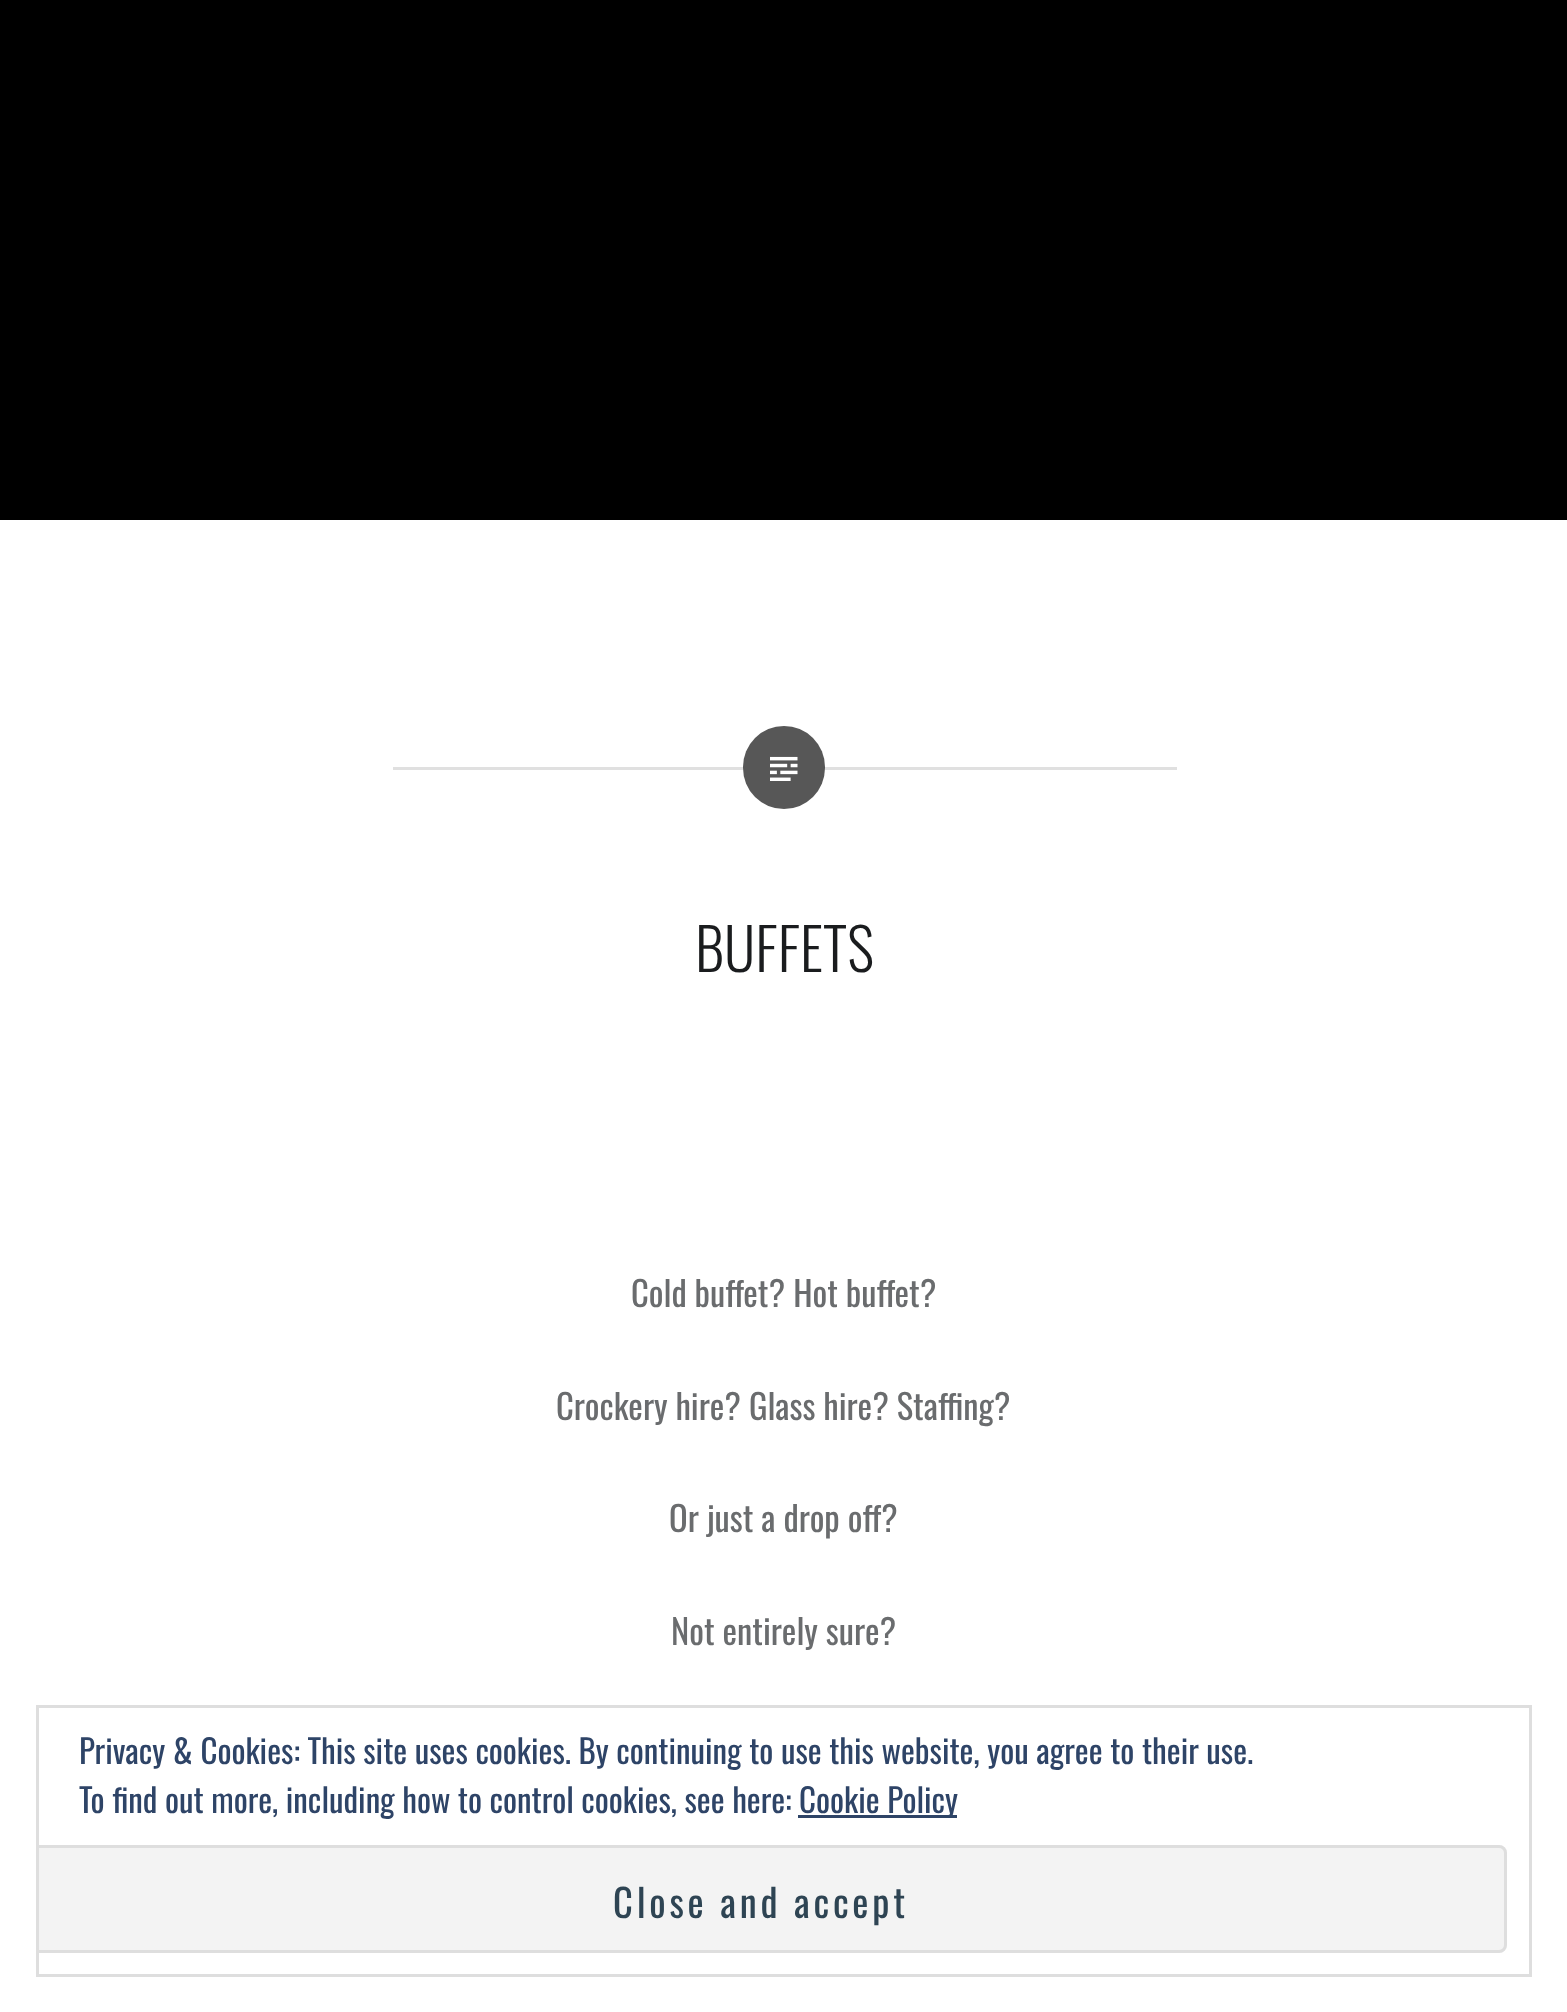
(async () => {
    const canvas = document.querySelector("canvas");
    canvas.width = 1567;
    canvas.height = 2012;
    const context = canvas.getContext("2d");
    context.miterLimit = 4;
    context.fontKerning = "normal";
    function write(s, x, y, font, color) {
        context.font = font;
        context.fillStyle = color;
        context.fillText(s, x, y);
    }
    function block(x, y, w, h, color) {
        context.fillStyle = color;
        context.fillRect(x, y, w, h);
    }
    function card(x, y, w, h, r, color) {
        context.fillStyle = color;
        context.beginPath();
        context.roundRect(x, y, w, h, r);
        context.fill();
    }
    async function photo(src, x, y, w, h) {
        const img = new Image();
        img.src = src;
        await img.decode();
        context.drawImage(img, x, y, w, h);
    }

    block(0, 0, 1567, 2012, "rgb(255, 255, 255)");
    block(0, 0, 1567, 520, "rgb(0, 0, 0)");
    block(393, 767, 784, 3, "rgb(224, 224, 224)");
    card(743, 726, 82, 83, 41, "rgb(87, 87, 87)");
    await photo("media/1.png", 770, 756, 28, 25);
    write("BUFFETS", 695, 972, "300 58px Oswald", "rgb(26, 28, 30)");
    write("Cold buffet? Hot buffet?", 631, 1307, "34.6px Oswald", "rgb(106, 108, 110)");
    write("Crockery hire? Glass hire? Staffing?", 556, 1420, "34.6px Oswald", "rgb(106, 108, 110)");
    write("Or just a drop off?", 669, 1532, "34.6px Oswald", "rgb(106, 108, 110)");
    write("Not entirely sure?", 671, 1645, "34.6px Oswald", "rgb(106, 108, 110)");
    context.strokeStyle = "rgb(222, 222, 222)";
    context.lineWidth = 3;
    context.strokeRect(37.5, 1706.5, 1493, 269);
    write("Privacy & Cookies: This site uses cookies. By continuing to use this website, you agree to their use.", 79, 1764, "33px Oswald", "rgb(46, 68, 103)");
    write("To find out more, including how to control cookies, see here:", 79, 1813, "33px Oswald", "rgb(46, 68, 103)");
    block(798, 1815, 159, 3, "rgb(46, 68, 103)");
    write("Cookie Policy", 799, 1813, "33px Oswald", "rgb(46, 68, 103)");
    context.fillStyle = "rgb(243, 243, 243)";
    context.beginPath();
    context.roundRect(39, 1845, 1468, 108, [0, 8, 8, 0]);
    context.fill();
    context.save();
    context.beginPath();
    context.rect(39, 1708, 1490, 267);
    context.clip();
    context.beginPath();
    context.roundRect(18.5, 1846.5, 1487, 105, 6.5);
    context.stroke();
    context.restore();
    context.letterSpacing = "3.8px";
    write("Close and accept", 613, 1918, "38.5px Oswald", "rgb(46, 68, 83)");
})();
